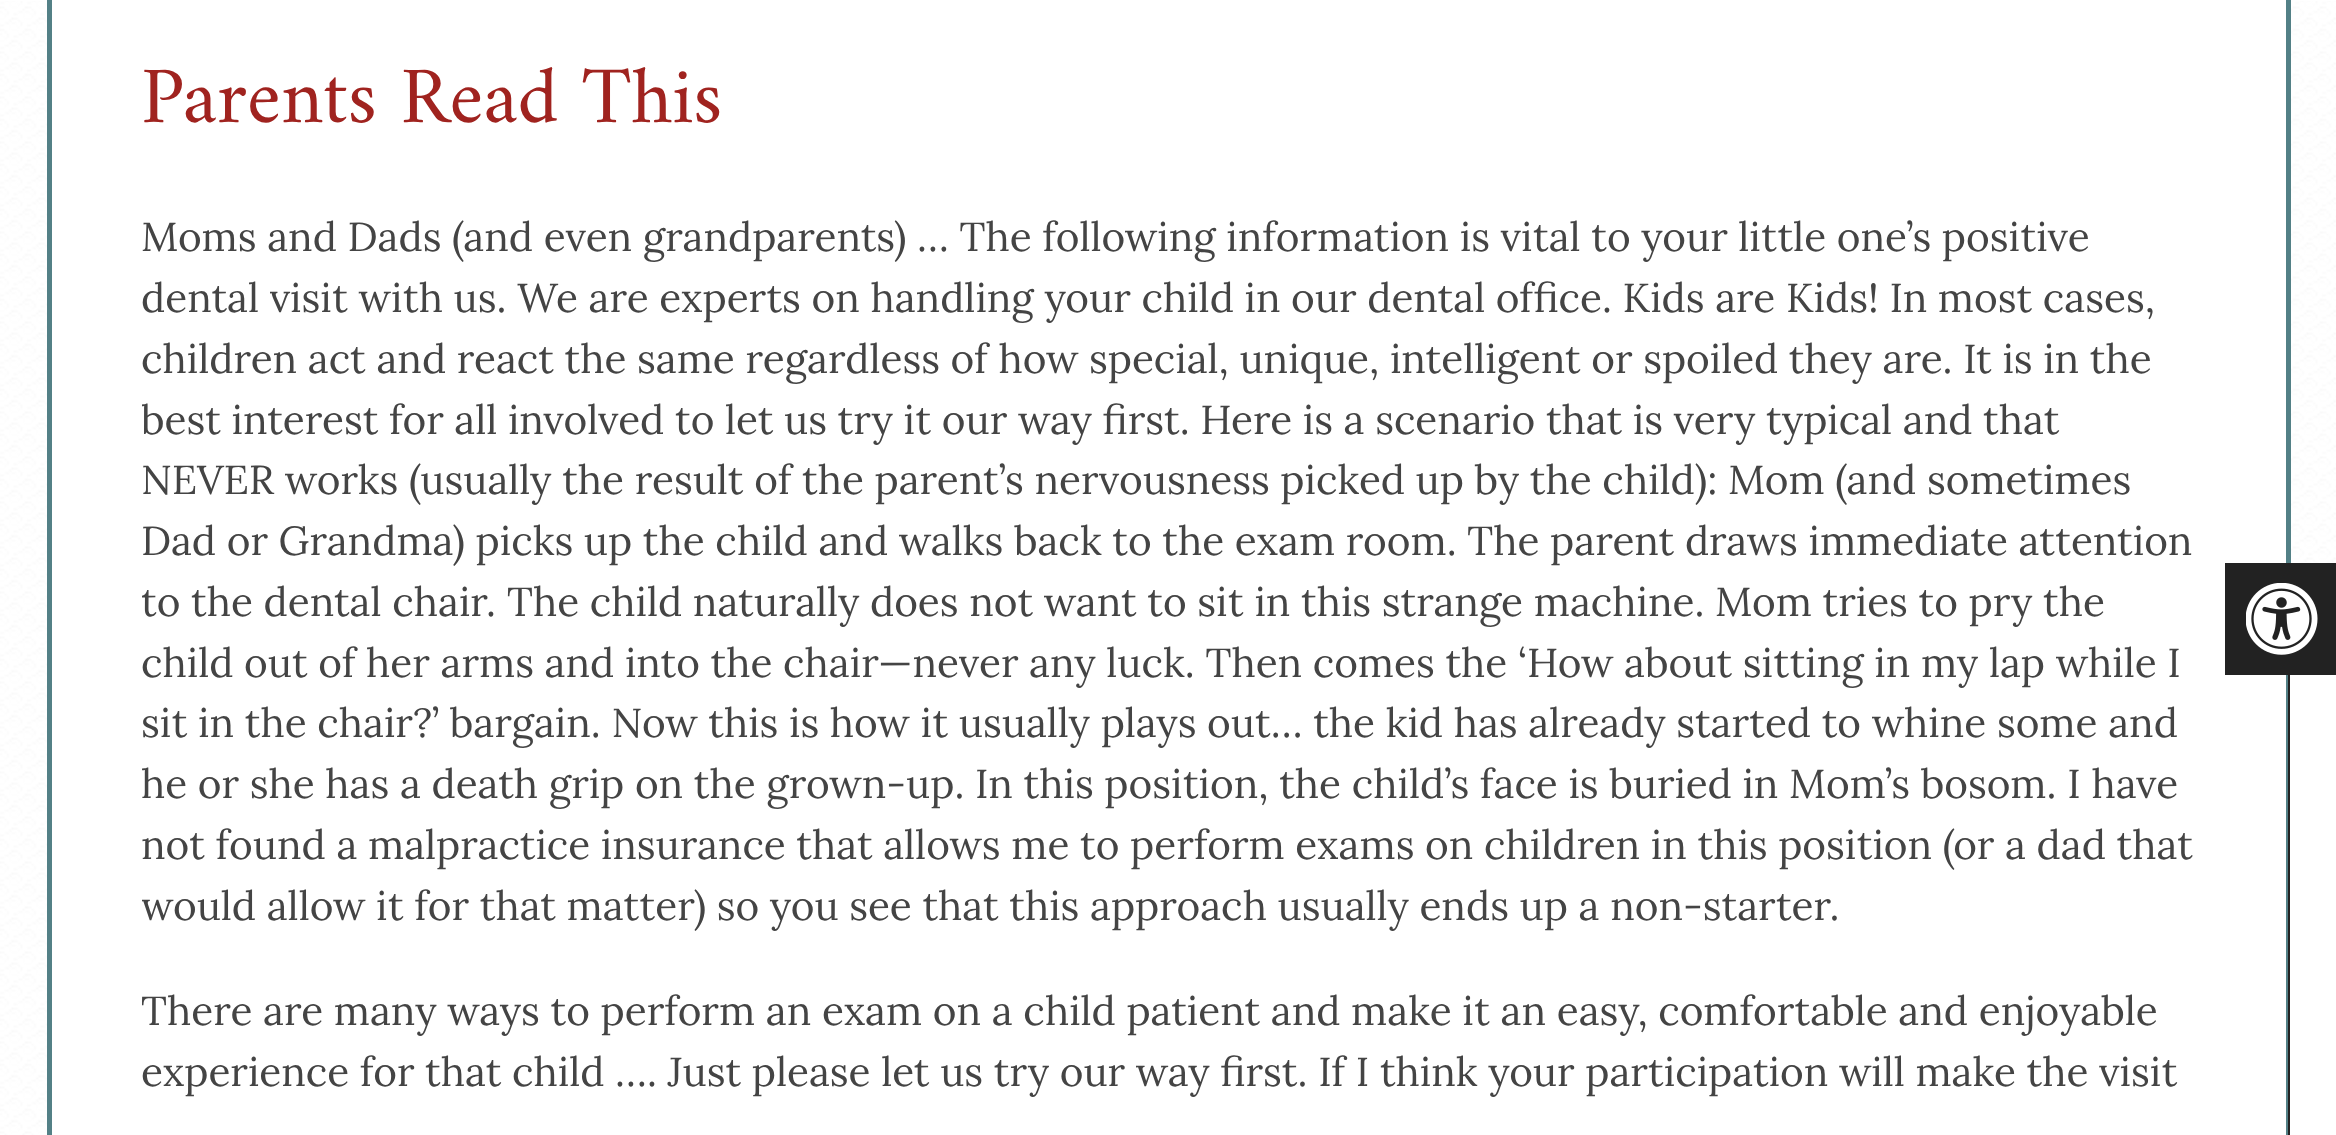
(async () => {
    const canvas = document.querySelector("canvas");
    canvas.width = 2336;
    canvas.height = 1135;
    const context = canvas.getContext("2d");
    context.miterLimit = 4;
    context.fontKerning = "normal";
    function write(s, x, y, font, color) {
        context.font = font;
        context.fillStyle = color;
        context.fillText(s, x, y);
    }
    function block(x, y, w, h, color) {
        context.fillStyle = color;
        context.fillRect(x, y, w, h);
    }
    async function photo(src, x, y, w, h) {
        const img = new Image();
        img.src = src;
        await img.decode();
        context.drawImage(img, x, y, w, h);
    }

    block(0, 0, 2336, 1135, "rgb(255, 255, 255)");
    await photo("media/1.png", 0, 1, 2336, 1134);
    block(52, 1, 2234, 1134, "rgb(255, 255, 255)");
    context.strokeStyle = "rgb(83, 128, 134)";
    context.lineWidth = 5;
    context.strokeRect(49.5, -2.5, 2239, 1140);
    write("Parents Read This", 141, 122, "81px Amiri", "rgb(160, 35, 31)");
    write("Moms and Dads (and even grandparents) … The following information is vital to your little one’s positive", 141, 251, "40.5px Lora", "rgb(68, 68, 68)");
    write("dental visit with us. We are experts on handling your child in our dental office. Kids are Kids! In most cases,", 141, 312, "40.5px Lora", "rgb(68, 68, 68)");
    write("children act and react the same regardless of how special, unique, intelligent or spoiled they are. It is in the", 141, 373, "40.5px Lora", "rgb(68, 68, 68)");
    context.save();
    context.beginPath();
    context.rect(142, 207, 2054, 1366);
    context.clip();
    write("best interest", 141, 434, "40.5px Lora", "rgb(68, 68, 68)");
    context.restore();
    write("for all involved to let us try it our way first. Here is a scenario that is very typical and that", 389, 434, "40.5px Lora", "rgb(68, 68, 68)");
    write("NEVER works (usually the result of the parent’s nervousness picked up by the child): Mom (and sometimes", 141, 494, "40.5px Lora", "rgb(68, 68, 68)");
    write("Dad or Grandma) picks up the child and walks back to the exam room. The parent draws immediate attention", 141, 555, "40.5px Lora", "rgb(68, 68, 68)");
    context.save();
    context.beginPath();
    context.rect(142, 207, 2054, 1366);
    context.clip();
    write("to the dental chair.", 141, 616, "40.5px Lora", "rgb(68, 68, 68)");
    context.restore();
    write("The child naturally does not want to sit in this strange machine. Mom tries to pry the", 507, 616, "40.5px Lora", "rgb(68, 68, 68)");
    write("child out of her arms and into the chair—never any luck. Then comes the ‘How about sitting in my lap while I", 141, 677, "40.5px Lora", "rgb(68, 68, 68)");
    write("sit in the chair?’ bargain. Now this is how it usually plays out… the kid has already started to whine some and", 141, 737, "40.5px Lora", "rgb(68, 68, 68)");
    write("he or she has a death grip on the grown-up. In this position, the child’s face is buried in Mom’s bosom. I have", 141, 798, "40.5px Lora", "rgb(68, 68, 68)");
    write("not found a malpractice insurance that allows me to perform exams on children in this position (or a dad that", 141, 859, "40.5px Lora", "rgb(68, 68, 68)");
    context.save();
    context.beginPath();
    context.rect(142, 207, 2054, 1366);
    context.clip();
    write("would allow it for that matter) so you see that this approach usually ends up a non-starter.", 141, 920, "40.5px Lora", "rgb(68, 68, 68)");
    write("There are many ways to perform an exam on a child patient and make it an easy, comfortable and enjoyable", 141, 1025, "40.5px Lora", "rgb(68, 68, 68)");
    context.restore();
    write("experience for that child …. Just please let us try our way first. If I think your participation will make the visit", 141, 1086, "40.5px Lora", "rgb(68, 68, 68)");
    block(2290, 675, 46, 460, "rgb(255, 255, 255)");
    context.strokeStyle = "rgb(34, 34, 34)";
    context.lineWidth = 2;
    context.strokeRect(2289, 564, 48, 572);
    block(2225, 563, 111, 112, "rgb(34, 34, 34)");
    await photo("media/2.png", 2246, 583, 72, 72);
})();
